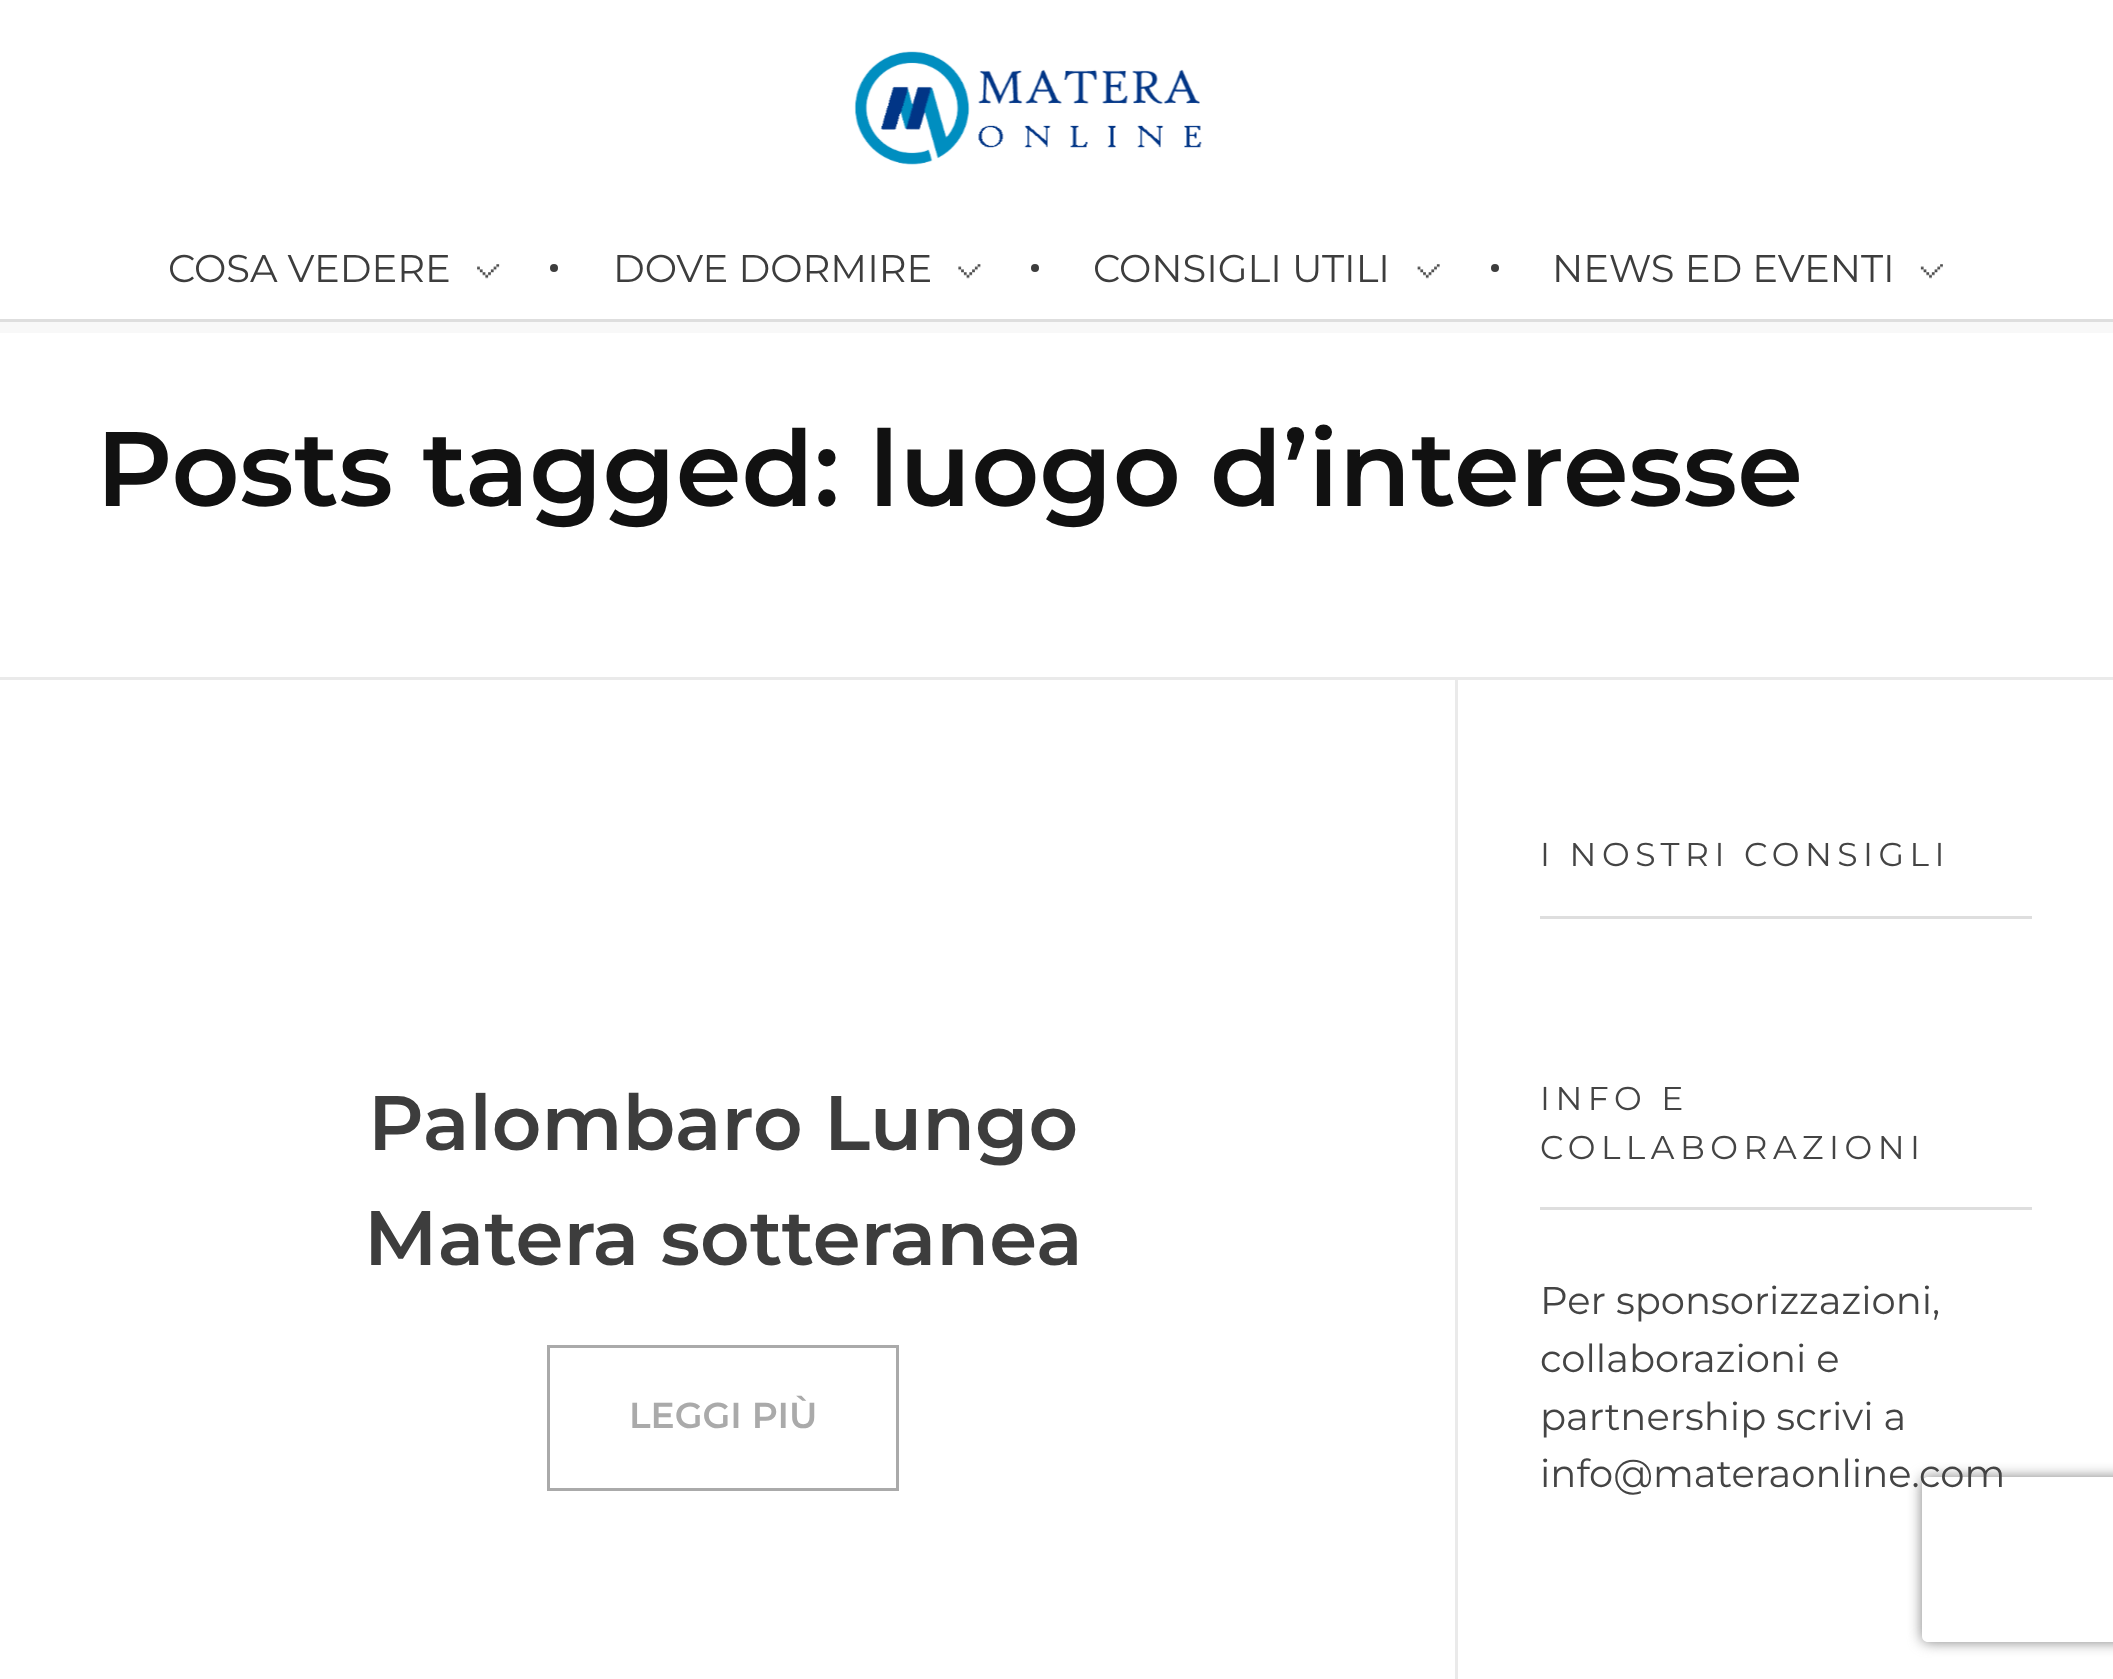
(async () => {
    const canvas = document.querySelector("canvas");
    canvas.width = 2113;
    canvas.height = 1679;
    const context = canvas.getContext("2d");
    context.miterLimit = 4;
    context.fontKerning = "normal";
    function write(s, x, y, font, color) {
        context.font = font;
        context.fillStyle = color;
        context.fillText(s, x, y);
    }
    function block(x, y, w, h, color) {
        context.fillStyle = color;
        context.fillRect(x, y, w, h);
    }
    async function photo(src, x, y, w, h) {
        const img = new Image();
        img.src = src;
        await img.decode();
        context.drawImage(img, x, y, w, h);
    }

    block(0, 0, 2113, 1679, "rgb(255, 255, 255)");
    context.fillStyle = "rgba(34, 34, 34, 0.03)";
    context.beginPath();
    context.moveTo(0, 322);
    context.lineTo(0, 333);
    context.lineTo(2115, 333);
    context.lineTo(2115, 11);
    context.lineTo(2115, 322);
    context.closePath();
    context.fill();
    block(0, 319, 2113, 3, "rgb(222, 222, 222)");
    await photo("media/1.png", 854, 51, 348, 114);
    write("COSA VEDERE", 168, 282, "38.5px Montserrat", "rgb(61, 61, 61)");
    await photo("media/2.png", 477, 264, 23, 15);
    context.beginPath();
    context.arc(554, 268, 4, 0, Math.PI * 2);
    context.fill();
    write("DOVE DORMIRE", 613, 282, "38.5px Montserrat", "rgb(61, 61, 61)");
    await photo("media/3.png", 958, 264, 23, 15);
    context.beginPath();
    context.arc(1035, 268, 4, 0, Math.PI * 2);
    context.fill();
    write("CONSIGLI UTILI", 1093, 282, "38.5px Montserrat", "rgb(61, 61, 61)");
    await photo("media/4.png", 1417, 264, 23, 15);
    context.beginPath();
    context.arc(1495, 268, 4, 0, Math.PI * 2);
    context.fill();
    write("NEWS ED EVENTI", 1552, 282, "38.5px Montserrat", "rgb(61, 61, 61)");
    await photo("media/5.png", 1920, 264, 23, 15);
    block(0, 677, 2113, 3, "rgb(234, 234, 234)");
    write("Posts tagged: luogo d’interesse", 96, 506, "600 105.6px Montserrat", "rgb(17, 17, 17)");
    write("Palombaro Lungo", 368, 1150, "600 77px Montserrat", "rgb(61, 61, 61)");
    write("Matera sotteranea", 364, 1265, "600 77px Montserrat", "rgb(61, 61, 61)");
    context.strokeStyle = "rgb(170, 170, 170)";
    context.lineWidth = 3;
    context.strokeRect(548.5, 1346.5, 349, 143);
    write("LEGGI PIÙ", 629, 1428, "600 36px Montserrat", "rgb(170, 170, 170)");
    block(1455, 679, 3, 1000, "rgb(234, 234, 234)");
    block(1540, 916, 492, 3, "rgb(222, 222, 222)");
    context.letterSpacing = "5.5px";
    write("I NOSTRI CONSIGLI", 1540, 866, "33px Montserrat", "rgb(68, 68, 68)");
    block(1540, 1207, 492, 3, "rgb(222, 222, 222)");
    write("INFO E", 1540, 1110, "33px Montserrat", "rgb(68, 68, 68)");
    write("COLLABORAZIONI", 1540, 1159, "33px Montserrat", "rgb(68, 68, 68)");
    context.letterSpacing = "0px";
    write("Per sponsorizzazioni,", 1540, 1314, "38.5px Montserrat", "rgb(68, 68, 68)");
    write("collaborazioni e", 1540, 1372, "38.5px Montserrat", "rgb(68, 68, 68)");
    write("partnership scrivi a", 1540, 1430, "38.5px Montserrat", "rgb(68, 68, 68)");
    context.save();
    context.beginPath();
    context.moveTo(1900, 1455);
    context.lineTo(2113, 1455);
    context.lineTo(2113, 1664);
    context.lineTo(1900, 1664);
    context.closePath();
    context.moveTo(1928, 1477);
    context.lineTo(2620, 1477);
    context.bezierCurveTo(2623.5, 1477, 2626, 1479.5, 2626, 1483);
    context.lineTo(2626, 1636);
    context.bezierCurveTo(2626, 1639.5, 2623.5, 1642, 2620, 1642);
    context.lineTo(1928, 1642);
    context.bezierCurveTo(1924.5, 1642, 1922, 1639.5, 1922, 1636);
    context.lineTo(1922, 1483);
    context.bezierCurveTo(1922, 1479.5, 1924.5, 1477, 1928, 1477);
    context.closePath();
    context.clip("evenodd");
    context.fillStyle = "rgb(128, 128, 128)";
    context.filter = "blur(7px)";
    context.beginPath();
    context.roundRect(1922, 1477, 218, 165, 6);
    context.fill();
    context.filter = "none";
    context.restore();
    write("info@materaonline.com", 1540, 1487, "38.5px Montserrat", "rgb(68, 68, 68)");
})();
